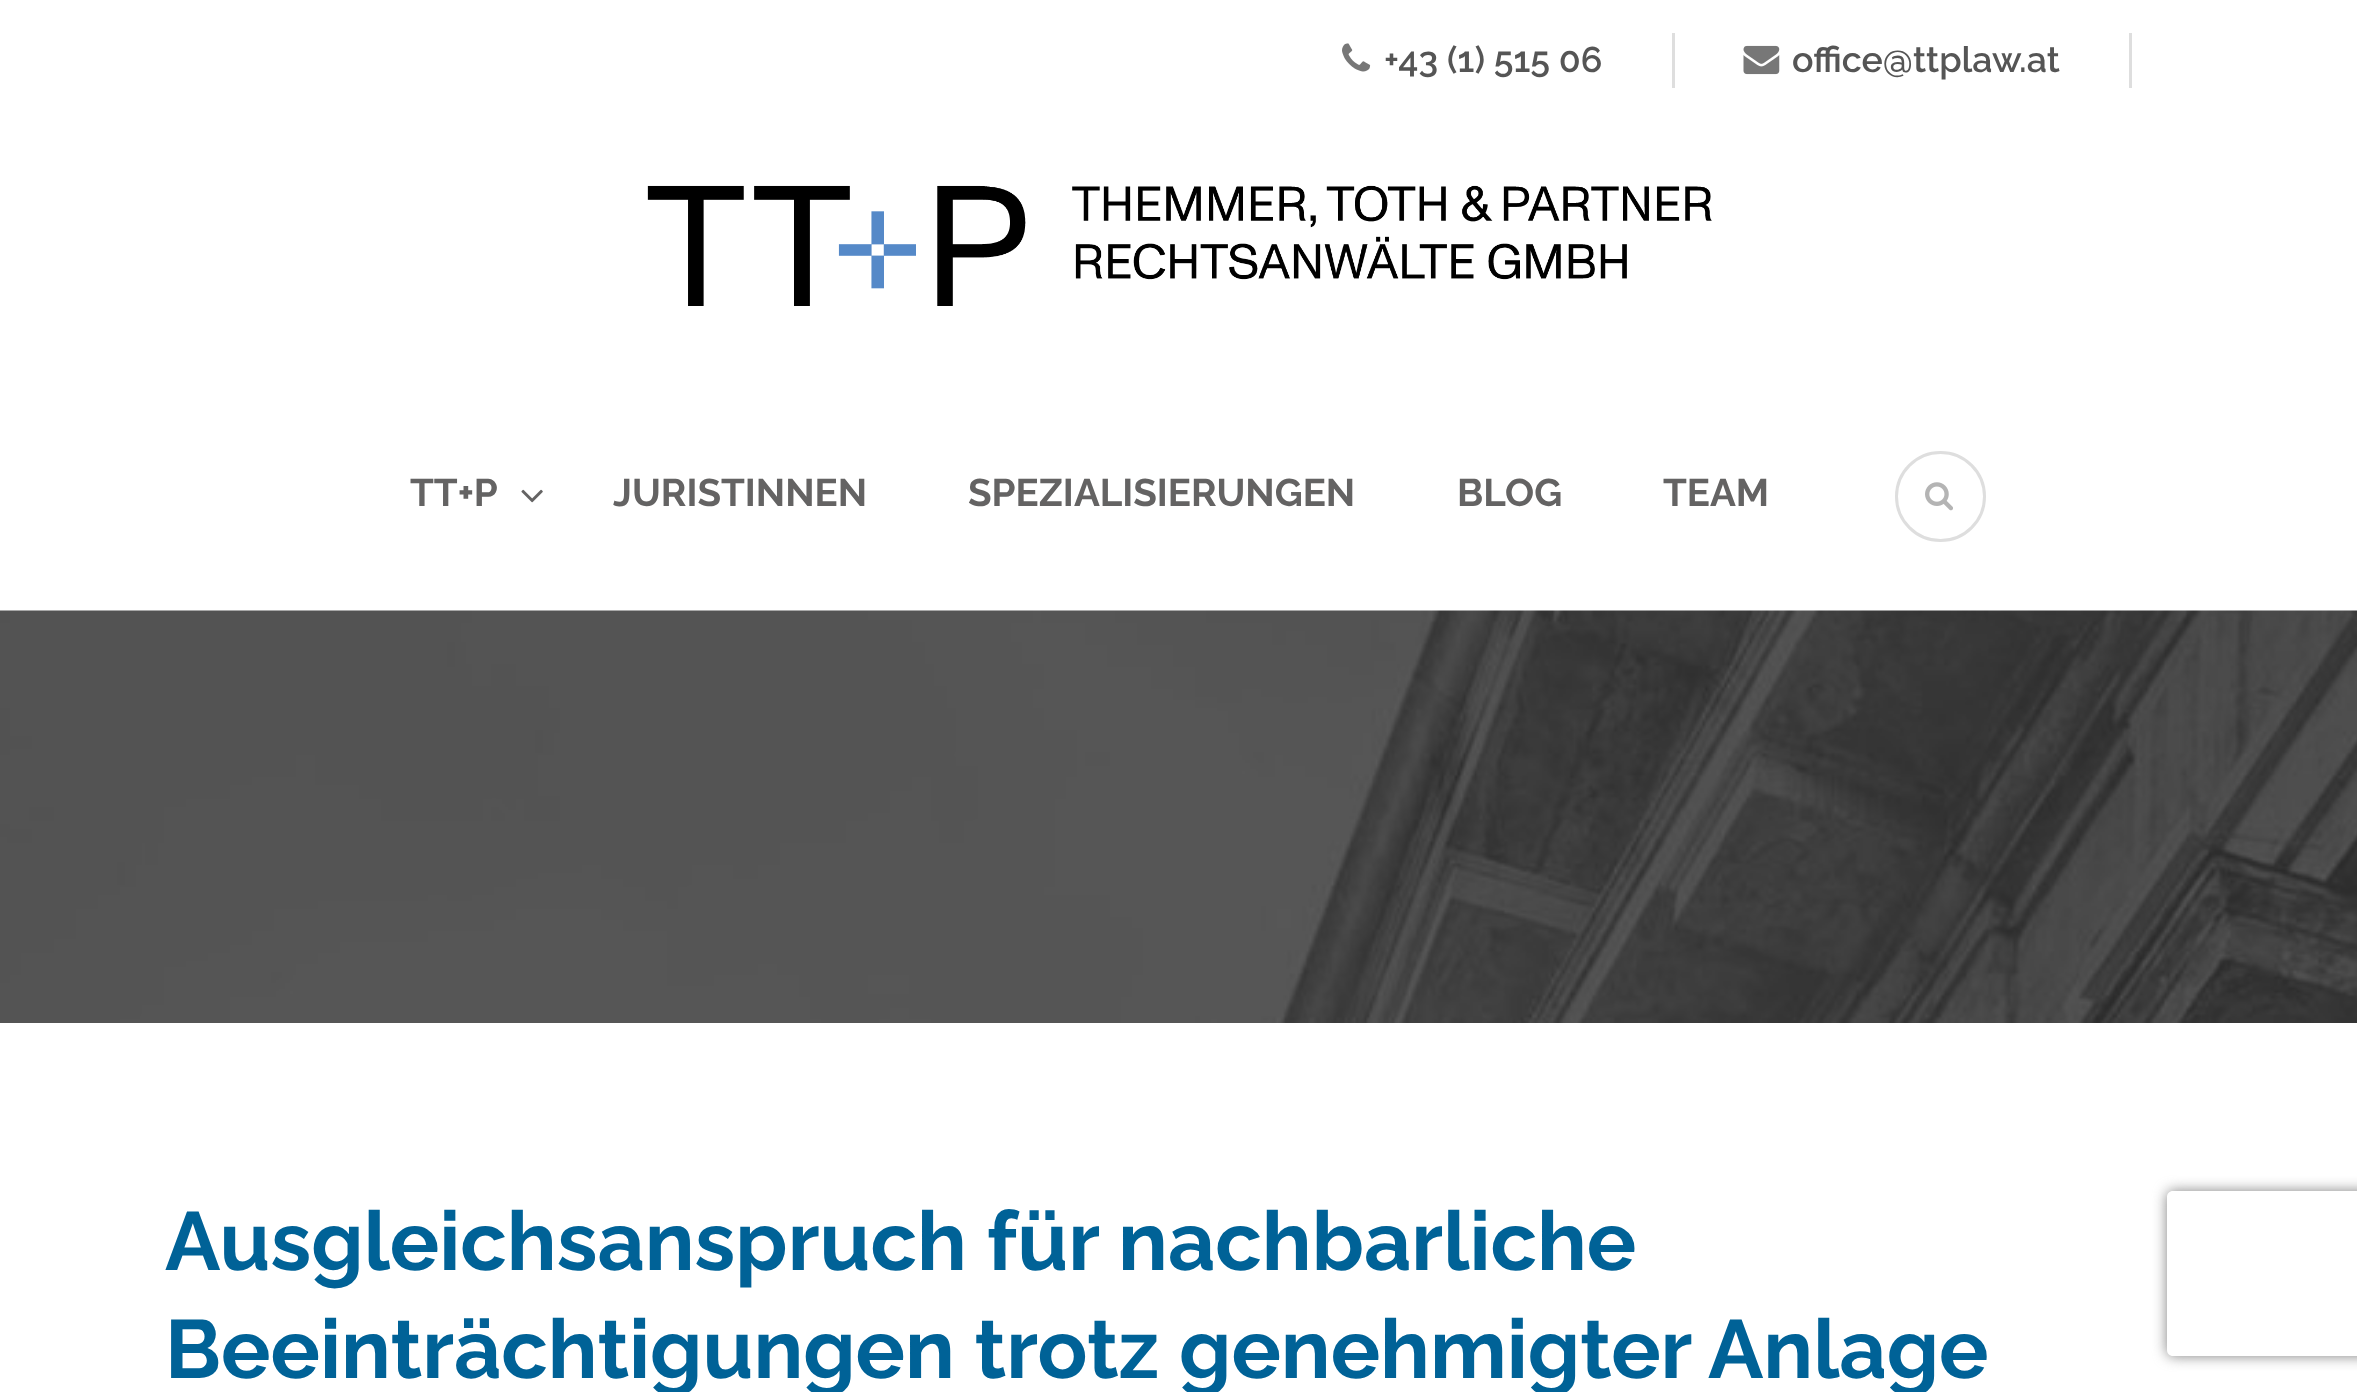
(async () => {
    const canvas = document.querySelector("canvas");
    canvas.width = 2357;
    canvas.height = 1392;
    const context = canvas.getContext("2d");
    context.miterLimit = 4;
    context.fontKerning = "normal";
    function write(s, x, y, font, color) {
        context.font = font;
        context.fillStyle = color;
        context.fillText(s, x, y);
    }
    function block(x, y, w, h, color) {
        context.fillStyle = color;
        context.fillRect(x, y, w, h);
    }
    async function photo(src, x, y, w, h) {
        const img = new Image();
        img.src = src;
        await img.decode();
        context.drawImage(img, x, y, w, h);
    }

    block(0, 0, 2357, 1392, "rgb(255, 255, 255)");
    block(1672, 33, 3, 55, "rgb(222, 222, 222)");
    await photo("media/1.png", 1342, 43, 29, 29);
    write("+43 (1) 515 06", 1384, 72, "600 35.75px Raleway", "rgb(85, 85, 85)");
    block(2129, 33, 3, 55, "rgb(222, 222, 222)");
    await photo("media/2.png", 1743, 45, 37, 30);
    write("office@ttplaw.at", 1792, 72, "600 35.75px Raleway", "rgb(85, 85, 85)");
    await photo("media/3.png", 647, 185, 1065, 121);
    write("TT+P", 410, 506, "bold 38.5px Raleway", "rgb(100, 99, 99)");
    await photo("media/4.png", 521, 489, 22, 14);
    write("JURISTINNEN", 613, 506, "bold 38.5px Raleway", "rgb(100, 99, 99)");
    write("SPEZIALISIERUNGEN", 968, 506, "bold 38.5px Raleway", "rgb(100, 99, 99)");
    write("BLOG", 1457, 506, "bold 38.5px Raleway", "rgb(100, 99, 99)");
    write("TEAM", 1663, 506, "bold 38.5px Raleway", "rgb(100, 99, 99)");
    context.beginPath();
    context.arc(1940.5, 496.5, 44, 0, Math.PI * 2);
    context.strokeStyle = "rgb(222, 222, 222)";
    context.lineWidth = 3;
    context.stroke();
    await photo("media/5.png", 1925, 482, 28, 29);
    await photo("media/6.png", 0, 610, 2357, 413);
    write("Ausgleichsanspruch für nachbarliche", 165, 1270, "bold 82.5px Raleway", "rgb(0, 98, 151)");
    write("Beeinträchtigungen trotz genehmigter Anlage", 165, 1378, "bold 82.5px Raleway", "rgb(0, 98, 151)");
    context.save();
    context.beginPath();
    context.moveTo(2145, 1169);
    context.lineTo(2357, 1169);
    context.lineTo(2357, 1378);
    context.lineTo(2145, 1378);
    context.closePath();
    context.moveTo(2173, 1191);
    context.lineTo(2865, 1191);
    context.bezierCurveTo(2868.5, 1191, 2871, 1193.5, 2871, 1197);
    context.lineTo(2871, 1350);
    context.bezierCurveTo(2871, 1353.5, 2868.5, 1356, 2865, 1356);
    context.lineTo(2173, 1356);
    context.bezierCurveTo(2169.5, 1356, 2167, 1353.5, 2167, 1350);
    context.lineTo(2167, 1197);
    context.bezierCurveTo(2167, 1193.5, 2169.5, 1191, 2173, 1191);
    context.closePath();
    context.clip("evenodd");
    context.fillStyle = "rgb(128, 128, 128)";
    context.filter = "blur(7px)";
    context.beginPath();
    context.roundRect(2167, 1191, 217, 165, 6);
    context.fill();
    context.filter = "none";
    context.restore();
})();
